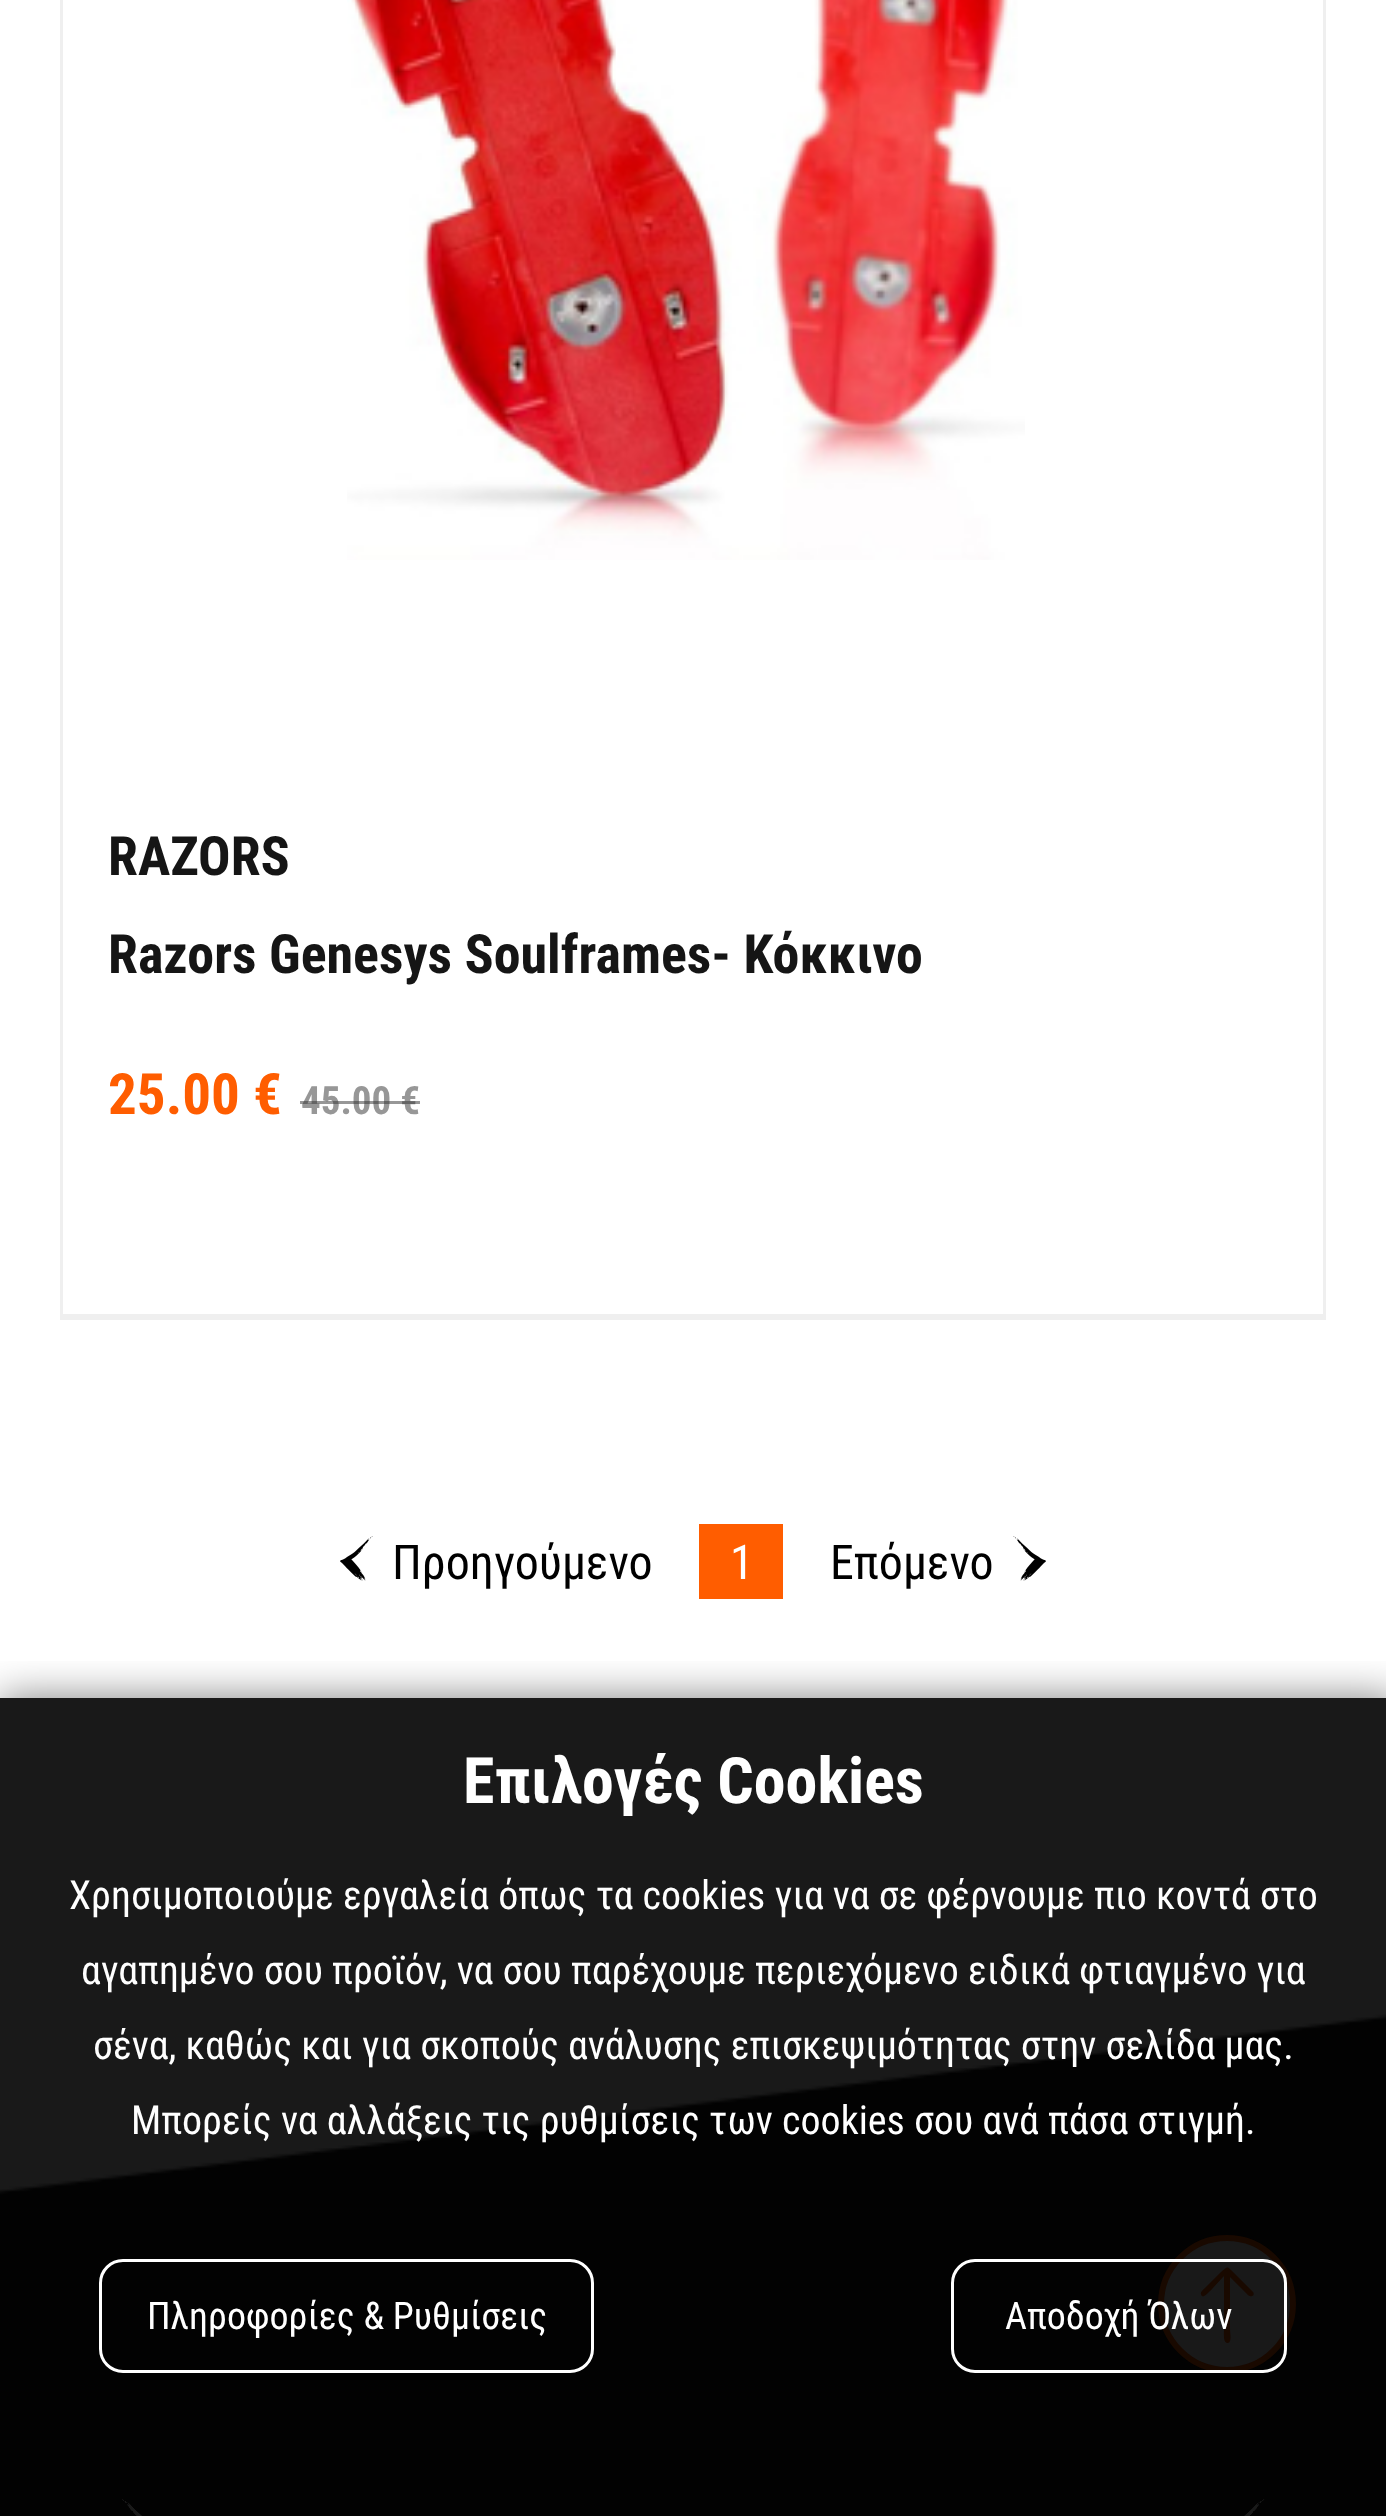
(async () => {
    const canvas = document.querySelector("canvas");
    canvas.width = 1386;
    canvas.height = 2516;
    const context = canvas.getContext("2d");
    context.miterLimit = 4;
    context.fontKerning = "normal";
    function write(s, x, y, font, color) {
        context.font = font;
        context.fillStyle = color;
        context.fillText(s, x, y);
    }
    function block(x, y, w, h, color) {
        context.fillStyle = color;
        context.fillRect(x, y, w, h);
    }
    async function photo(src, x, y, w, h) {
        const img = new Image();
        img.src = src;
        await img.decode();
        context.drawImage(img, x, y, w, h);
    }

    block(0, 0, 1386, 2516, "rgb(255, 255, 255)");
    block(0, 1698, 1386, 497, "rgb(25, 25, 25)");
    block(1323, 0, 3, 1320, "rgb(239, 239, 239)");
    block(60, 1314, 1266, 6, "rgb(239, 239, 239)");
    block(60, 0, 3, 1320, "rgb(239, 239, 239)");
    await photo("media/1.png", 347, 0, 678, 560);
    write("RAZORS", 108, 875, "bold 54px Roboto Condensed", "rgb(21, 21, 21)");
    write("Razors Genesys Soulframes- Κόκκινο", 108, 973, "bold 54px Roboto Condensed", "rgb(21, 21, 21)");
    write("25.00 €", 108, 1114, "bold 57px Roboto Condensed", "rgb(255, 93, 0)");
    write("45.00 €", 301, 1114, "bold 39px Roboto Condensed", "rgb(151, 151, 151)");
    block(300, 1101, 120, 3, "rgba(51, 51, 51, 0.51)");
    await photo("media/2.png", 340, 1536, 33, 45);
    write("Προηγούμενο", 392, 1579, "48px Roboto Condensed", "rgb(0, 0, 0)");
    block(699, 1524, 84, 75, "rgb(255, 93, 0)");
    write("1", 730, 1579, "48px Roboto Condensed", "rgb(255, 255, 255)");
    write("Επόμενο", 830, 1579, "48px Roboto Condensed", "rgb(0, 0, 0)");
    await photo("media/3.png", 1013, 1536, 33, 45);
    await photo("media/4.png", 0, 2014, 1386, 455);
    block(0, 2469, 1386, 47, "rgb(2, 2, 2)");
    await photo("media/5.png", 122, 2499, 20, 17);
    await photo("media/6.png", 1244, 2499, 21, 17);
    context.fillStyle = "rgb(25, 25, 25)";
    context.beginPath();
    context.arc(1227, 2304, 66, 0, Math.PI * 2);
    context.fill();
    context.strokeStyle = "rgb(25, 9, 0)";
    context.lineWidth = 6;
    context.stroke();
    context.fillStyle = "rgb(25, 9, 0)";
    context.beginPath();
    context.moveTo(1253, 2292);
    context.bezierCurveTo(1254, 2293, 1254, 2296, 1252, 2296);
    context.bezierCurveTo(1249, 2297, 1247, 2294, 1246, 2293);
    context.lineTo(1230, 2277);
    context.lineTo(1230, 2329);
    context.bezierCurveTo(1230, 2334, 1232, 2342, 1228, 2343);
    context.bezierCurveTo(1223, 2343, 1224, 2335, 1224, 2329);
    context.lineTo(1224, 2276);
    context.lineTo(1212, 2289);
    context.bezierCurveTo(1208, 2293, 1202, 2300, 1201, 2294);
    context.bezierCurveTo(1200, 2292, 1204, 2289, 1205, 2288);
    context.lineTo(1221, 2272);
    context.bezierCurveTo(1228, 2266, 1227, 2266, 1233, 2272);
    context.closePath();
    context.fill();
    context.save();
    context.beginPath();
    context.rect(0, 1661, 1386, 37);
    context.clip();
    context.fillStyle = "rgba(0, 0, 0, 0.5)";
    context.filter = "blur(21px)";
    context.beginPath();
    context.rect(0, 1698, 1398, 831);
    context.fill();
    context.filter = "none";
    context.restore();
    write("Επιλογές Cookies", 463, 1803, "bold 64px Roboto Condensed", "rgb(255, 255, 255)");
    write("Χρησιμοποιούμε εργαλεία όπως τα cookies για να σε φέρνουμε πιο κοντά στο", 69, 1909, "40px Roboto Condensed", "rgb(255, 255, 255)");
    write("αγαπημένο σου προϊόν, να σου παρέχουμε περιεχόμενο ειδικά φτιαγμένο για", 81, 1984, "40px Roboto Condensed", "rgb(255, 255, 255)");
    write("σένα, καθώς και για σκοπούς ανάλυσης επισκεψιμότητας στην σελίδα μας.", 93, 2059, "40px Roboto Condensed", "rgb(255, 255, 255)");
    write("Μπορείς να αλλάξεις τις ρυθμίσεις των cookies σου ανά πάσα στιγμή.", 131, 2134, "40px Roboto Condensed", "rgb(255, 255, 255)");
    context.beginPath();
    context.roundRect(100.5, 2260.5, 492, 111, 22.5);
    context.strokeStyle = "rgb(255, 255, 255)";
    context.lineWidth = 3;
    context.stroke();
    write("Πληροφορίες & Ρυθμίσεις", 147, 2329, "38px Roboto Condensed", "rgb(255, 255, 255)");
    context.beginPath();
    context.roundRect(952.5, 2260.5, 333, 111, 22.5);
    context.stroke();
    write("Αποδοχή Όλων", 1005, 2329, "38px Roboto Condensed", "rgb(255, 255, 255)");
})();
